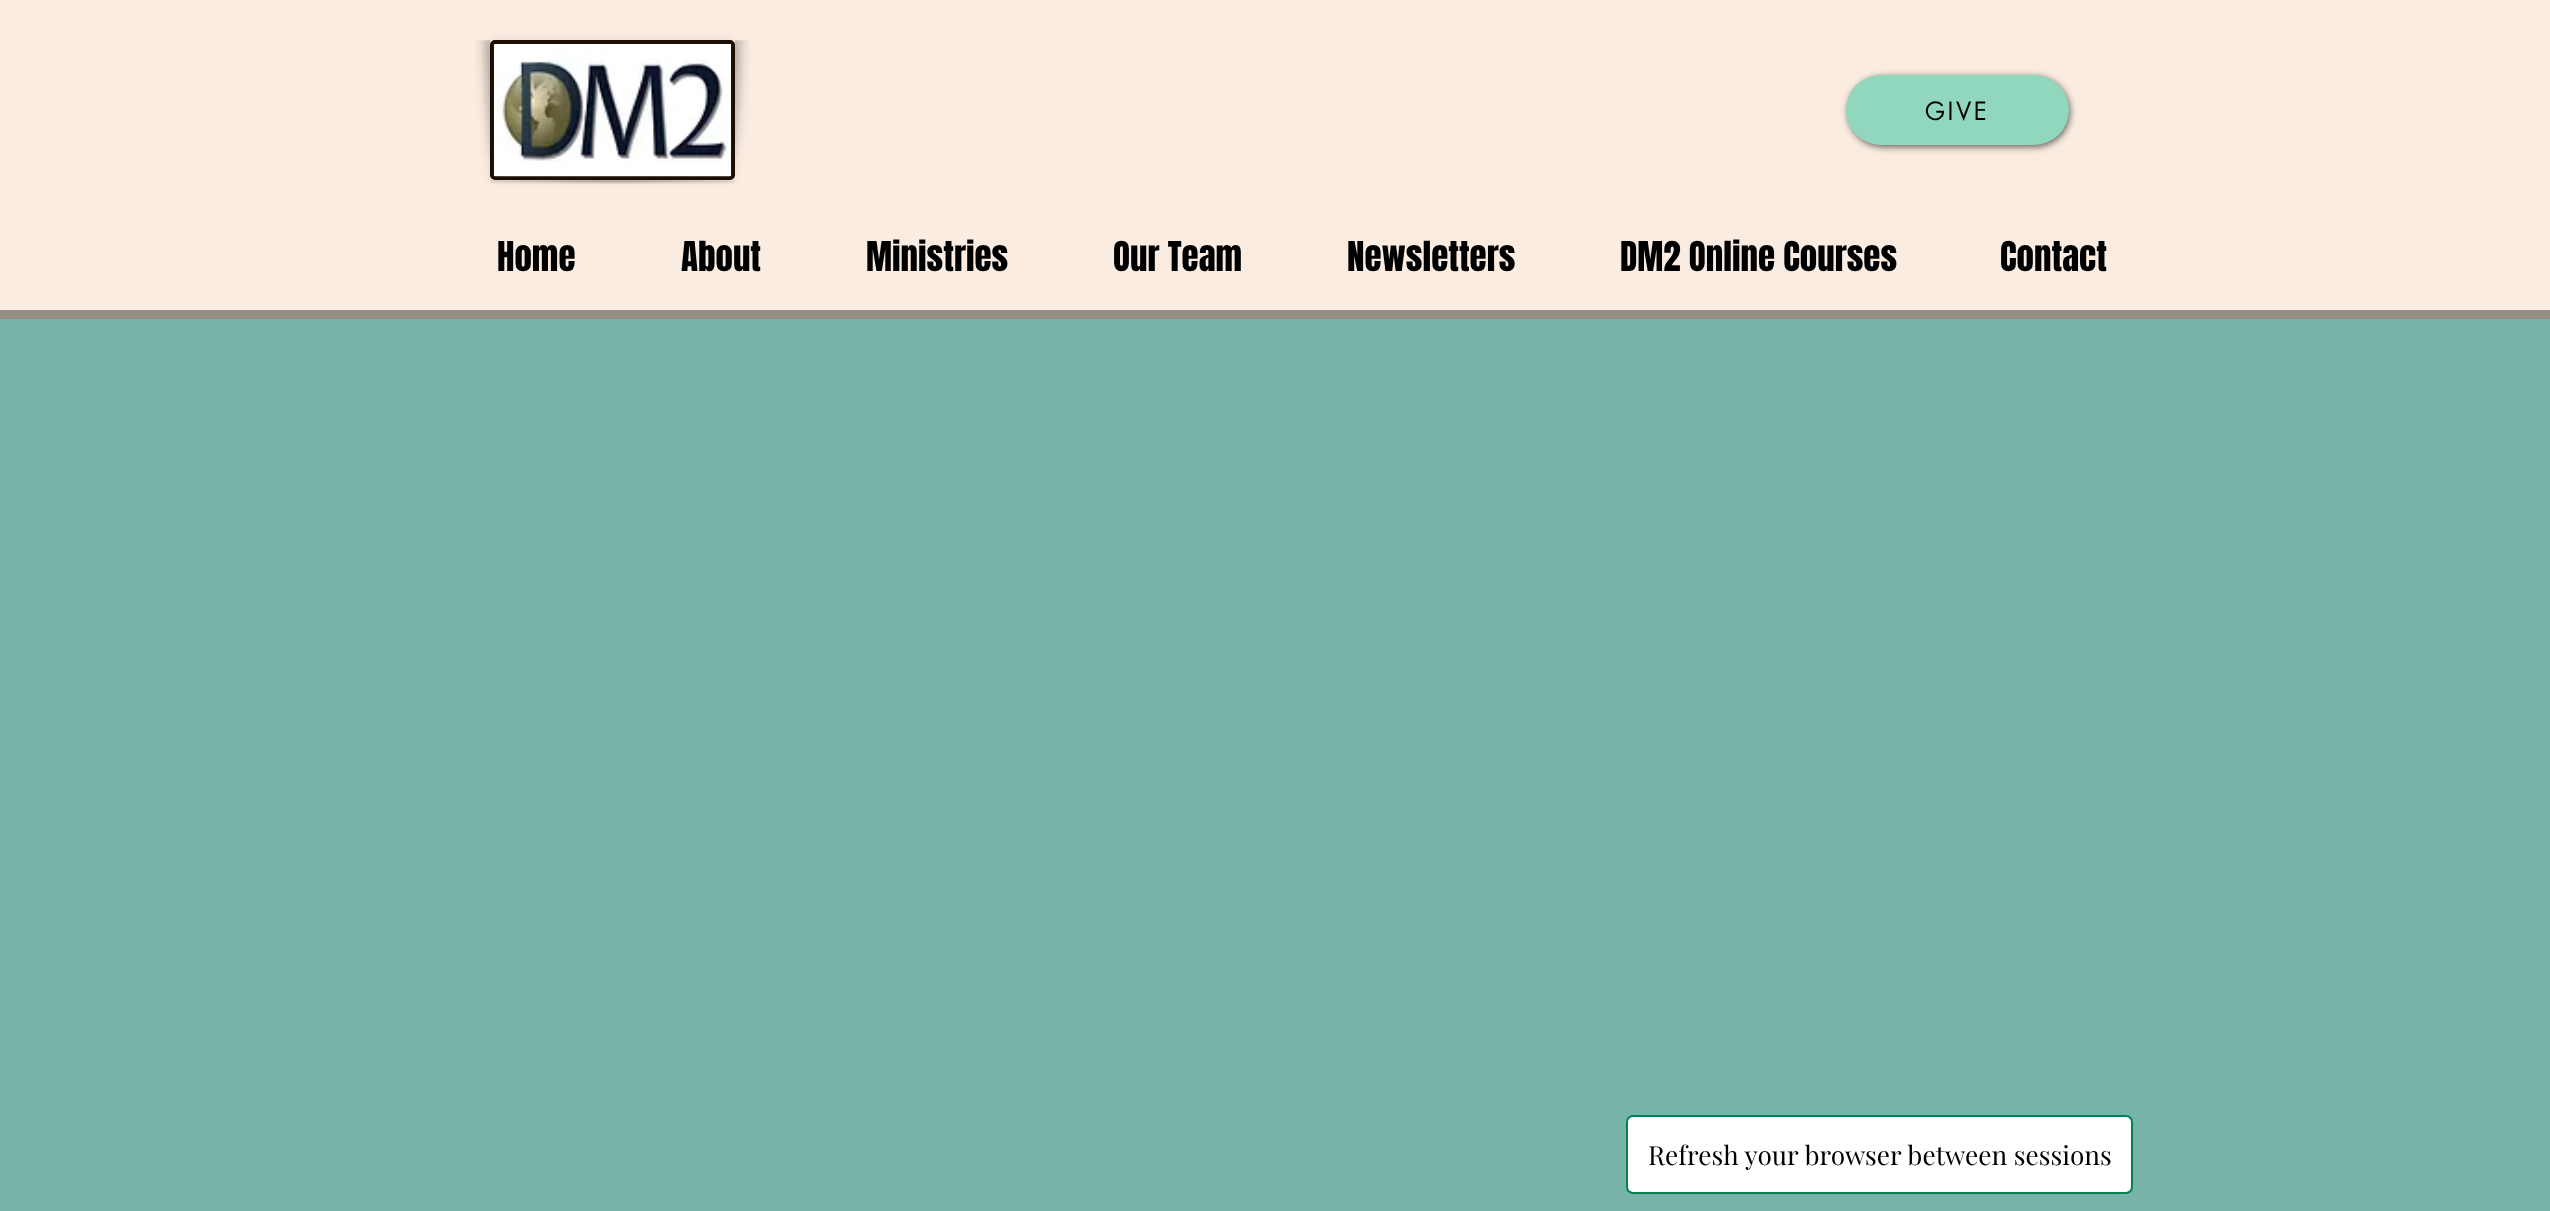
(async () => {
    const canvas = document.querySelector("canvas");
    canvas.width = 2550;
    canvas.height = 1211;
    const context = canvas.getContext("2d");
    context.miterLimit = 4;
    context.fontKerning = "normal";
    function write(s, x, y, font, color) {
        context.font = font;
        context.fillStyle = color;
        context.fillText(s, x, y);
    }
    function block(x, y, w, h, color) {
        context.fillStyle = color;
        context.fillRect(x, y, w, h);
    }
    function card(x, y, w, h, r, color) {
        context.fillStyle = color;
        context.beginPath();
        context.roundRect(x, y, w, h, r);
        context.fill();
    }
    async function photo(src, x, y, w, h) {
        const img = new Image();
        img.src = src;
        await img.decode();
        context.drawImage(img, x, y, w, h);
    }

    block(0, 0, 2550, 1211, "rgb(120, 179, 169)");
    block(0, 0, 2550, 310, "rgb(250, 236, 225)");
    block(0, 310, 2550, 9, "rgb(150, 142, 135)");
    context.fillStyle = "rgba(0, 0, 0, 0.1)";
    context.filter = "blur(4.5px)";
    context.beginPath();
    context.roundRect(490, 40, 245, 140, 5);
    context.fill();
    context.filter = "none";
    context.beginPath();
    context.roundRect(492, 42, 241, 136, 3);
    context.strokeStyle = "rgb(29, 14, 3)";
    context.lineWidth = 4;
    context.stroke();
    await photo("media/1.png", 493, 44, 239, 133);
    await photo("media/2.png", 490, 180, 245, 4);
    await photo("media/3.png", 475, 40, 15, 117);
    await photo("media/4.png", 735, 40, 15, 117);
    context.fillStyle = "rgba(0, 0, 0, 0.61)";
    context.filter = "blur(3.5px)";
    context.beginPath();
    context.roundRect(1848, 77, 222, 70, 35);
    context.fill();
    context.filter = "none";
    card(1846, 75, 223, 70, 35, "rgb(144, 215, 189)");
    context.letterSpacing = "2.5px";
    write("GIVE", 1925, 120, "24.5px futura", "rgb(0, 0, 0)");
    context.letterSpacing = "0px";
    write("Home", 497, 271, "35px Anton", "rgb(0, 0, 0)");
    write("About", 681, 271, "35px Anton", "rgb(0, 0, 0)");
    write("Ministries", 866, 271, "35px Anton", "rgb(0, 0, 0)");
    write("Our Team", 1113, 271, "35px Anton", "rgb(0, 0, 0)");
    write("Newsletters", 1347, 271, "35px Anton", "rgb(0, 0, 0)");
    write("DM2 Online Courses", 1620, 271, "35px Anton", "rgb(0, 0, 0)");
    write("Contact", 2000, 271, "35px Anton", "rgb(0, 0, 0)");
    context.fillStyle = "rgb(255, 255, 255)";
    context.beginPath();
    context.roundRect(1627, 1116, 505, 77, 6);
    context.fill();
    context.strokeStyle = "rgb(1, 130, 83)";
    context.lineWidth = 2;
    context.stroke();
    write("Refresh your browser between sessions", 1648, 1165, "26.25px Playfair Display", "rgb(0, 0, 0)");
})();
